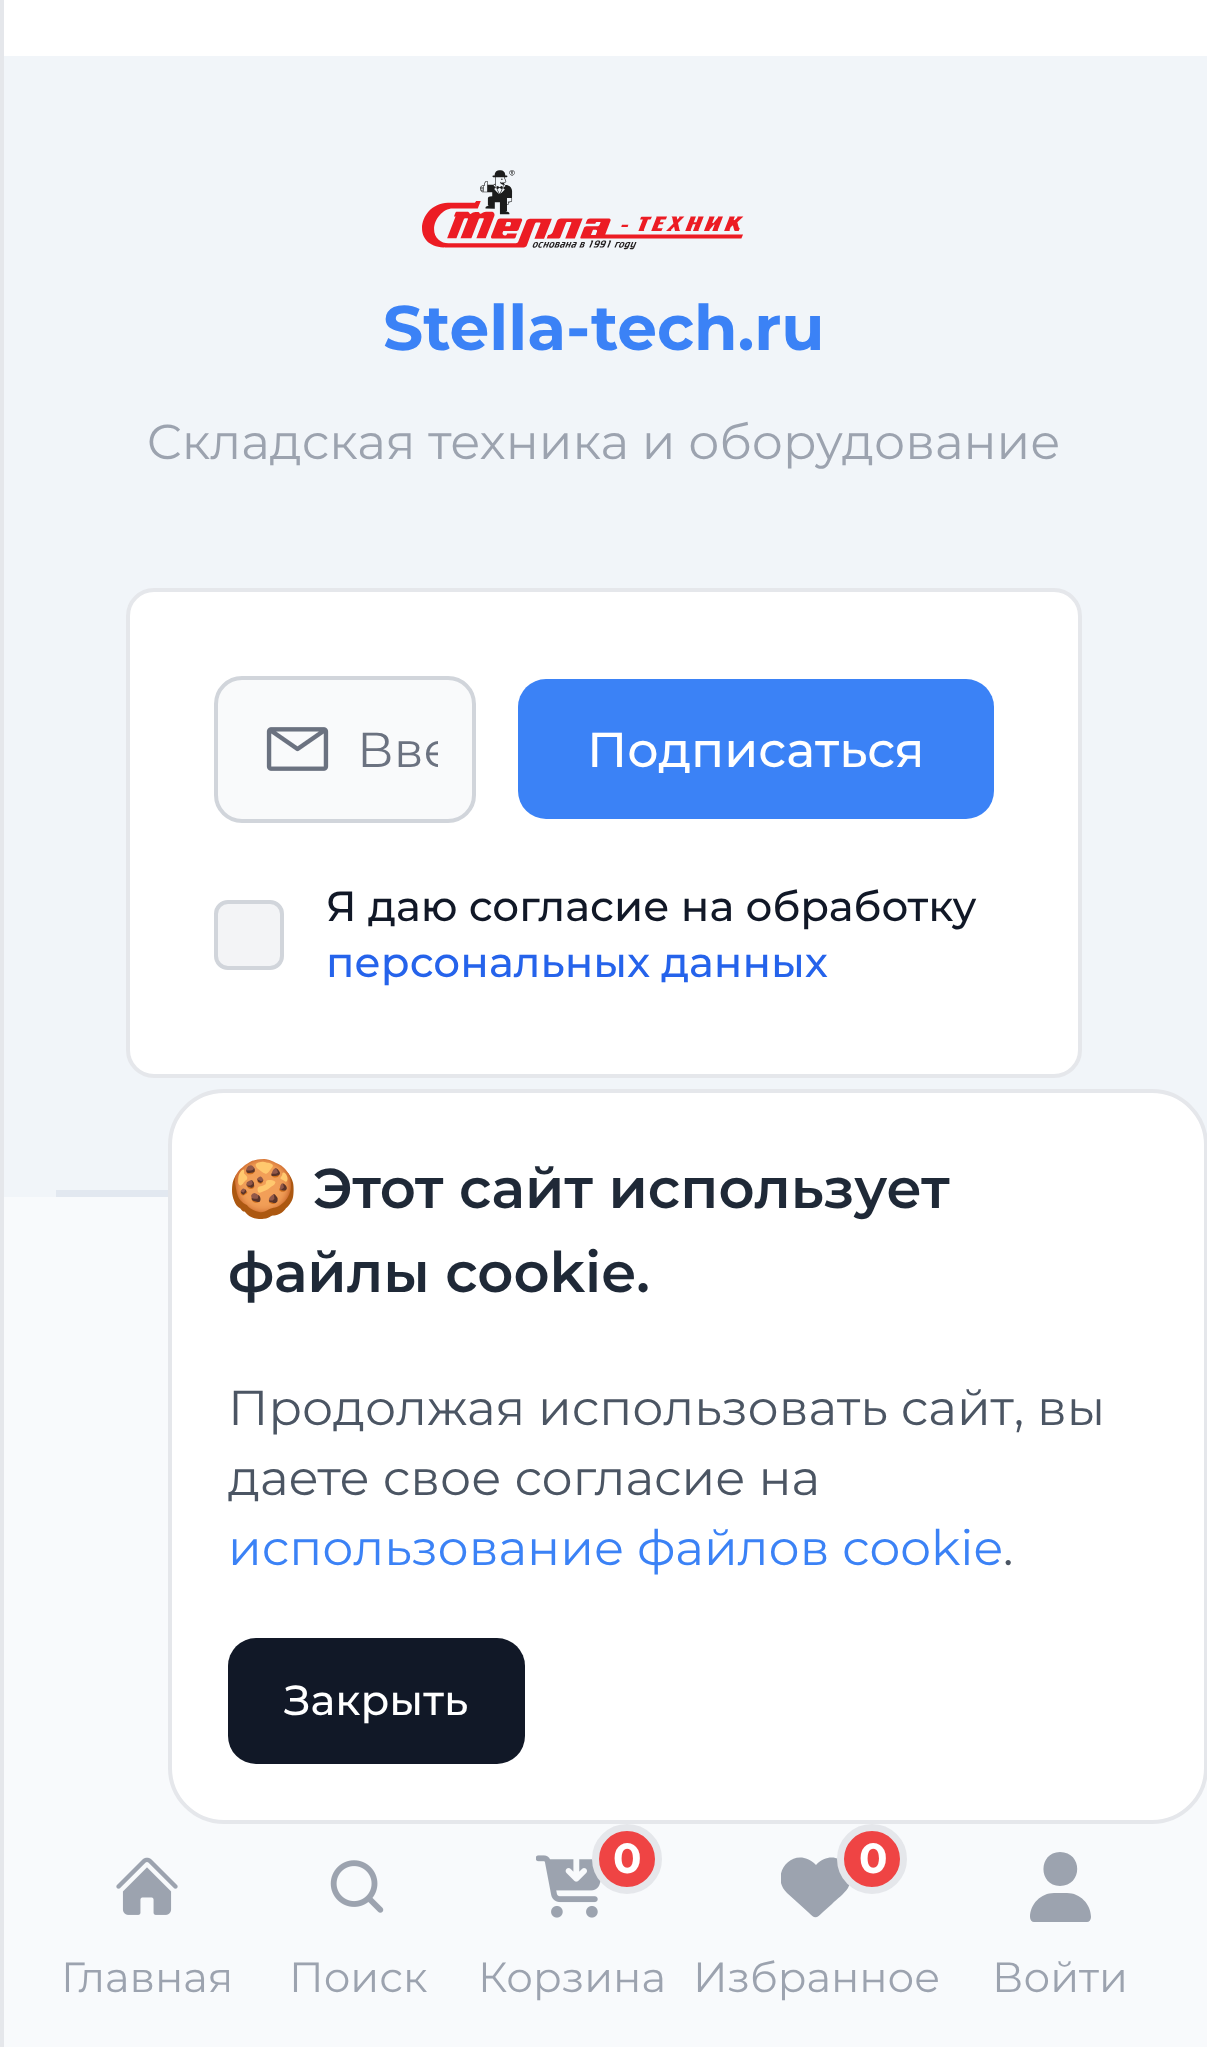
(async () => {
    const canvas = document.querySelector("canvas");
    canvas.width = 1207;
    canvas.height = 2047;
    const context = canvas.getContext("2d");
    context.miterLimit = 4;
    context.fontKerning = "normal";
    function write(s, x, y, font, color) {
        context.font = font;
        context.fillStyle = color;
        context.fillText(s, x, y);
    }
    function block(x, y, w, h, color) {
        context.fillStyle = color;
        context.fillRect(x, y, w, h);
    }
    function card(x, y, w, h, r, color) {
        context.fillStyle = color;
        context.beginPath();
        context.roundRect(x, y, w, h, r);
        context.fill();
    }
    async function photo(src, x, y, w, h) {
        const img = new Image();
        img.src = src;
        await img.decode();
        context.drawImage(img, x, y, w, h);
    }

    block(0, 0, 1207, 2047, "rgb(255, 255, 255)");
    block(4, 1197, 1203, 632, "rgb(248, 250, 252)");
    context.beginPath();
    context.moveTo(42, 1796);
    context.lineTo(1166, 1796);
    context.bezierCurveTo(1189, 1796, 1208, 1815, 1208, 1838);
    context.lineTo(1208, 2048);
    context.lineTo(0, 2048);
    context.lineTo(0, 1838);
    context.bezierCurveTo(0, 1815, 19, 1796, 42, 1796);
    context.closePath();
    context.fill();
    block(0, 0, 4, 2047, "rgb(229, 231, 235)");
    block(4, 56, 1203, 1141, "rgb(241, 245, 249)");
    block(56, 1190, 112, 7, "rgb(226, 232, 240)");
    await photo("media/1.png", 422, 170, 322, 80);
    write("Stella-tech.ru", 383, 350, "bold 63px Montserrat", "rgb(59, 130, 246)");
    write("Cкладская техника и оборудование", 147, 459, "49px Montserrat", "rgb(156, 163, 175)");
    context.fillStyle = "rgb(255, 255, 255)";
    context.beginPath();
    context.roundRect(128, 590, 952, 486, 26);
    context.fill();
    context.strokeStyle = "rgb(229, 231, 235)";
    context.lineWidth = 4;
    context.stroke();
    context.fillStyle = "rgb(249, 250, 251)";
    context.beginPath();
    context.roundRect(216, 678, 258, 143, 26);
    context.fill();
    context.strokeStyle = "rgb(209, 213, 219)";
    context.stroke();
    await photo("media/2.png", 266, 727, 63, 44);
    context.save();
    context.beginPath();
    context.rect(357, 718, 81, 63);
    context.clip();
    write("Вве", 357, 767, "49px Montserrat", "rgb(107, 114, 128)");
    context.restore();
    card(518, 679, 476, 140, 28, "rgb(59, 130, 246)");
    write("Подписаться", 587, 767, "500 49px Montserrat", "rgb(255, 255, 255)");
    context.fillStyle = "rgb(243, 244, 246)";
    context.beginPath();
    context.roundRect(216, 902, 66, 66, 12);
    context.fill();
    context.stroke();
    write("Я даю согласие на обработку", 326, 921, "500 42px Montserrat", "rgb(17, 24, 39)");
    write("персональных данных", 326, 977, "500 42px Montserrat", "rgb(37, 99, 235)");
    context.fillStyle = "rgb(255, 255, 255)";
    context.beginPath();
    context.roundRect(170, 1091, 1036, 731, 54);
    context.fill();
    context.strokeStyle = "rgb(229, 231, 235)";
    context.stroke();
    write("🍪", 228, 1208, "56px Noto Color Emoji", "rgb(31, 41, 55)");
    write("Этот сайт использует", 313, 1208, "600 56px Montserrat", "rgb(31, 41, 55)");
    write("файлы cookie.", 228, 1292, "600 56px Montserrat", "rgb(31, 41, 55)");
    write("Продолжая использовать сайт, вы", 228, 1425, "49px Montserrat", "rgb(75, 85, 99)");
    write("даете свое согласие на", 228, 1495, "49px Montserrat", "rgb(75, 85, 99)");
    write("использование файлов cookie", 228, 1565, "49px Montserrat", "rgb(59, 130, 246)");
    write(".", 1003, 1565, "49px Montserrat", "rgb(75, 85, 99)");
    card(228, 1638, 297, 126, 28, "rgb(17, 24, 39)");
    write("Закрыть", 284, 1715, "500 42px Montserrat", "rgb(255, 255, 255)");
    await photo("media/3.png", 116, 1857, 62, 58);
    write("Главная", 61, 1992, "42px Montserrat", "rgb(156, 163, 175)");
    await photo("media/4.png", 330, 1860, 54, 53);
    write("Поиск", 289, 1992, "42px Montserrat", "rgb(156, 163, 175)");
    await photo("media/5.png", 536, 1855, 65, 63);
    context.fillStyle = "rgb(239, 68, 68)";
    context.beginPath();
    context.arc(627, 1859, 31.5, 0, Math.PI * 2);
    context.fill();
    context.lineWidth = 7;
    context.stroke();
    write("0", 613, 1873, "bold 42px Montserrat", "rgb(255, 255, 255)");
    write("Корзина", 478, 1992, "42px Montserrat", "rgb(156, 163, 175)");
    context.save();
    context.beginPath();
    context.rect(781, 1852, 70, 70);
    context.clip();
    context.beginPath();
    context.moveTo(787, 1893);
    context.lineTo(808, 1912);
    context.bezierCurveTo(815, 1919, 816, 1919, 823, 1912);
    context.lineTo(832, 1904);
    context.bezierCurveTo(837, 1899, 844, 1894, 848, 1888);
    context.bezierCurveTo(859, 1867, 834, 1846, 816, 1865);
    context.bezierCurveTo(794, 1843, 768, 1875, 787, 1893);
    context.closePath();
    context.fill();
    context.restore();
    context.fillStyle = "rgb(239, 68, 68)";
    context.beginPath();
    context.arc(872, 1859, 31.5, 0, Math.PI * 2);
    context.fill();
    context.stroke();
    write("0", 859, 1873, "bold 42px Montserrat", "rgb(255, 255, 255)");
    write("Избранное", 693, 1992, "42px Montserrat", "rgb(156, 163, 175)");
    context.beginPath();
    context.moveTo(1060, 1886);
    context.bezierCurveTo(1083, 1886, 1083, 1852, 1060, 1852);
    context.bezierCurveTo(1038, 1852, 1038, 1886, 1060, 1886);
    context.closePath();
    context.moveTo(1054, 1893);
    context.bezierCurveTo(1041, 1893, 1030, 1904, 1030, 1917);
    context.bezierCurveTo(1030, 1920, 1032, 1922, 1034, 1922);
    context.lineTo(1087, 1922);
    context.bezierCurveTo(1089, 1922, 1091, 1920, 1091, 1917);
    context.bezierCurveTo(1091, 1904, 1080, 1893, 1067, 1893);
    context.closePath();
    context.fill();
    write("Войти", 992, 1992, "42px Montserrat", "rgb(156, 163, 175)");
})();
